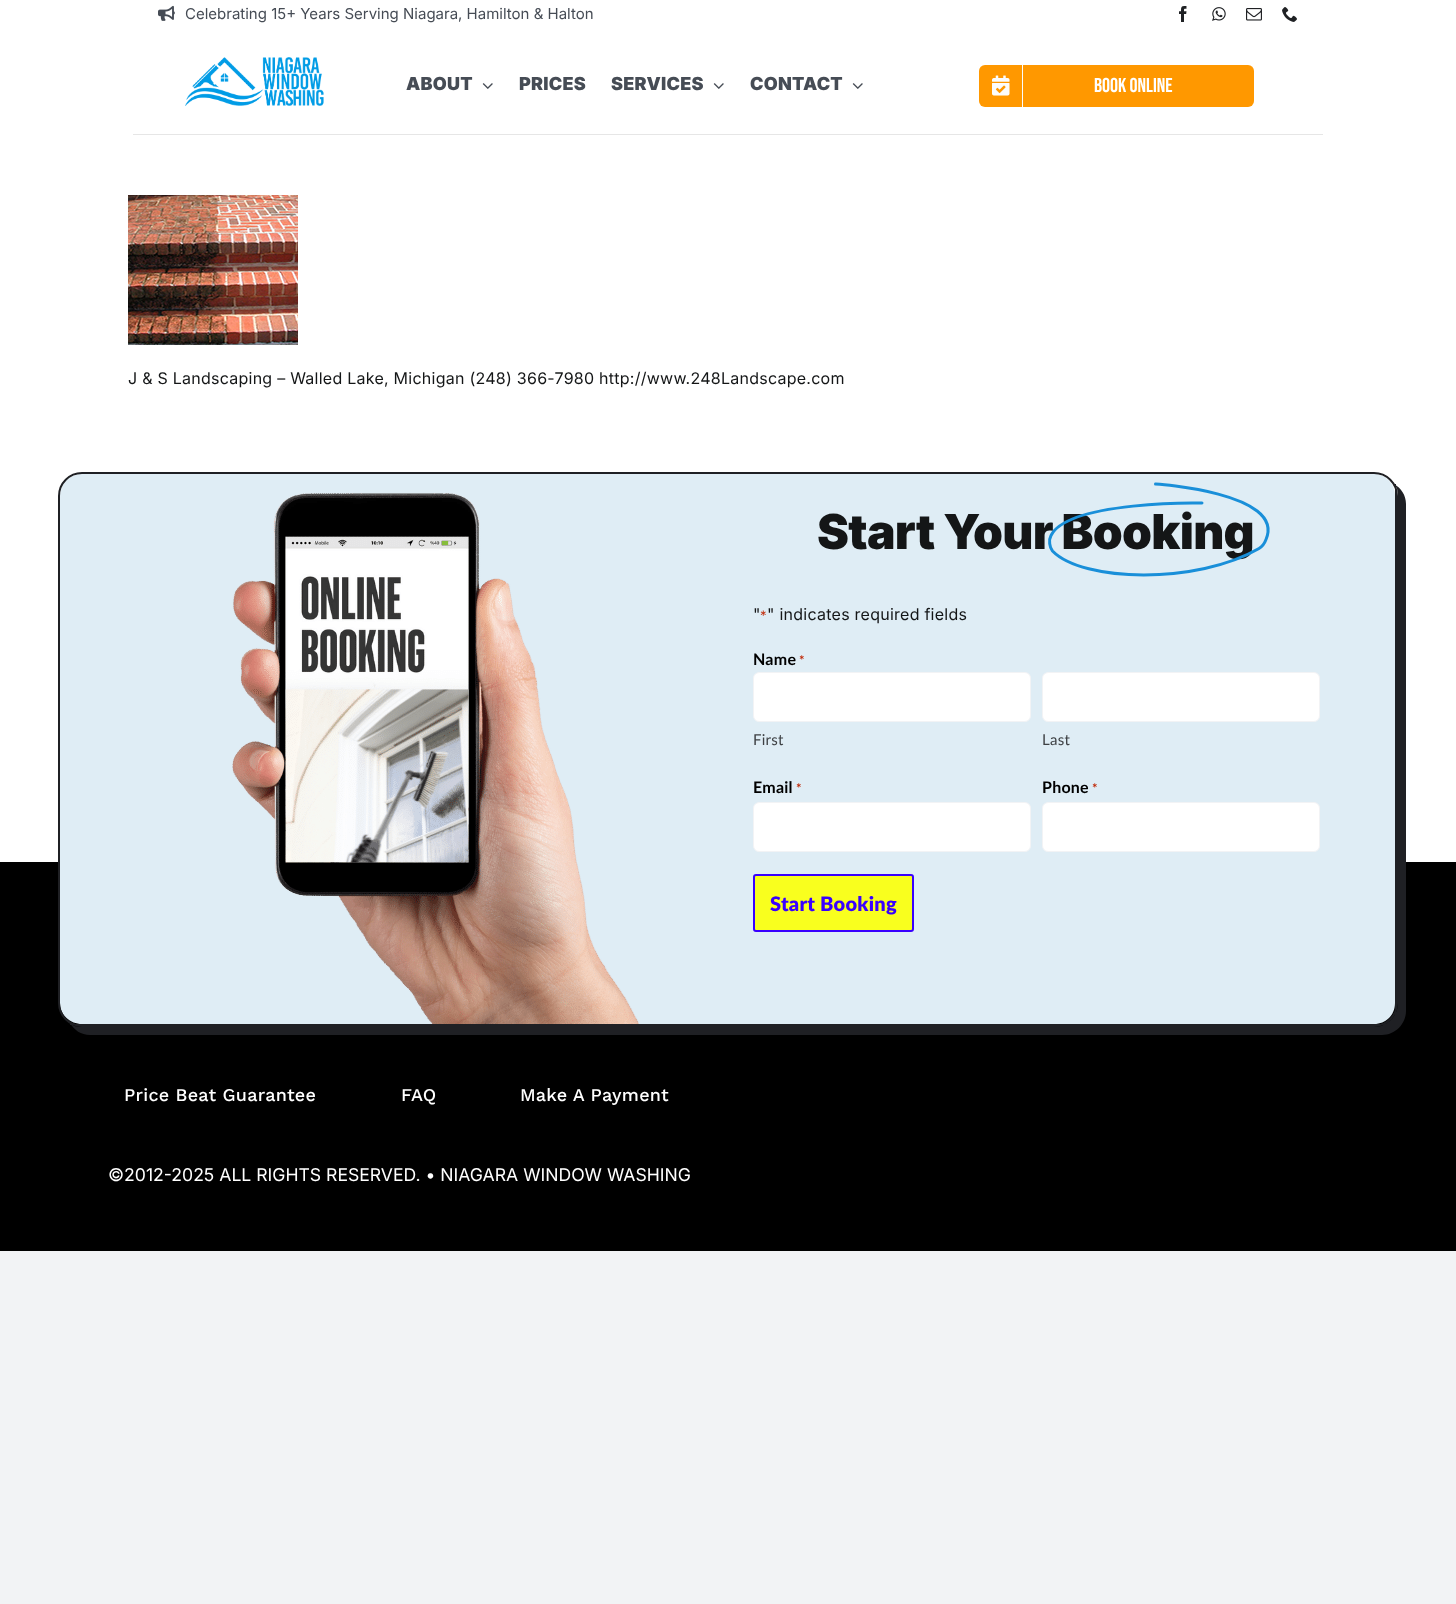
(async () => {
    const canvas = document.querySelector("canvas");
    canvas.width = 1456;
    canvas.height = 1604;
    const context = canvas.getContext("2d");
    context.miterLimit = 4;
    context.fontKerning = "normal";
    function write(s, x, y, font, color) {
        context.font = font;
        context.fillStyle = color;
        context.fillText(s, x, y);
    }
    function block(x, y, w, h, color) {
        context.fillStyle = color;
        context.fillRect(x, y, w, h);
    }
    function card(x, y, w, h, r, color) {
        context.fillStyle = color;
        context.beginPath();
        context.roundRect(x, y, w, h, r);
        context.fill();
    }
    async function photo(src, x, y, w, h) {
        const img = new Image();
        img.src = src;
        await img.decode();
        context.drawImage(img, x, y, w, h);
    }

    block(0, 0, 1456, 1604, "rgb(242, 243, 245)");
    block(0, 0, 1456, 862, "rgb(255, 255, 255)");
    await photo("media/1.png", 158, 5, 17, 16);
    write("Celebrating 15+ Years Serving Niagara, Hamilton & Halton", 185, 19, "15px Inter", "rgb(70, 76, 85)");
    await photo("media/2.png", 1179, 6, 8, 16);
    await photo("media/3.png", 1212, 7, 14, 14);
    await photo("media/4.png", 1246, 8, 16, 13);
    await photo("media/5.png", 1282, 7, 15, 15);
    block(133, 134, 1190, 1, "rgb(230, 230, 230)");
    await photo("media/6.png", 185, 57, 139, 49);
    context.letterSpacing = "0.25px";
    write("ABOUT", 406, 90, "900 18px Inter", "rgb(70, 76, 85)");
    await photo("media/7.png", 482, 83, 11, 6);
    write("PRICES", 519, 90, "900 18px Inter", "rgb(70, 76, 85)");
    write("SERVICES", 611, 90, "900 18px Inter", "rgb(70, 76, 85)");
    await photo("media/7.png", 713, 83, 11, 6);
    write("CONTACT", 750, 90, "900 18px Inter", "rgb(70, 76, 85)");
    await photo("media/7.png", 852, 83, 11, 6);
    card(979, 65, 275, 42, 6, "rgb(255, 152, 0)");
    block(1022, 65, 1, 42, "rgb(252, 252, 252)");
    await photo("media/8.png", 992, 75, 18, 21);
    context.letterSpacing = "0px";
    write("Book Online", 1094, 92, "20px Bebas Neue", "rgb(255, 255, 255)");
    await photo("media/9.png", 128, 195, 170, 150);
    context.letterSpacing = "0.25px";
    write("J & S Landscaping – Walled Lake, Michigan (248) 366-7980 http://www.248Landscape.com", 128, 384, "16px Inter", "rgb(20, 22, 23)");
    block(0, 862, 1456, 389, "rgb(0, 0, 0)");
    context.fillStyle = "rgb(31, 32, 36)";
    context.beginPath();
    context.moveTo(70, 1023);
    context.bezierCurveTo(74, 1030, 81, 1035, 90, 1035);
    context.lineTo(1382, 1035);
    context.bezierCurveTo(1395, 1035, 1406, 1024, 1406, 1011);
    context.lineTo(1406, 504);
    context.bezierCurveTo(1406, 495, 1401, 488, 1394, 484);
    context.bezierCurveTo(1397, 487, 1398, 491, 1398, 496);
    context.lineTo(1398, 1003);
    context.bezierCurveTo(1398, 1016, 1387, 1027, 1374, 1027);
    context.lineTo(82, 1027);
    context.bezierCurveTo(77, 1027, 73, 1026, 70, 1023);
    context.closePath();
    context.fill();
    context.fillStyle = "rgb(223, 237, 245)";
    context.beginPath();
    context.moveTo(82, 474);
    context.lineTo(1374, 474);
    context.bezierCurveTo(1386, 474, 1395, 484, 1395, 496);
    context.lineTo(1395, 1003);
    context.bezierCurveTo(1395, 1015, 1386, 1024, 1374, 1024);
    context.lineTo(82, 1024);
    context.bezierCurveTo(70, 1024, 60, 1015, 60, 1003);
    context.lineTo(60, 496);
    context.bezierCurveTo(60, 484, 70, 474, 82, 474);
    context.closePath();
    context.fill();
    context.beginPath();
    context.roundRect(59, 473, 1338, 553, 23);
    context.strokeStyle = "rgb(31, 32, 36)";
    context.lineWidth = 2;
    context.stroke();
    block(1395, 484, 1, 531, "rgb(31, 32, 36)");
    block(70, 1024, 1316, 1, "rgb(31, 32, 36)");
    await photo("media/10.png", 232, 493, 407, 531);
    context.letterSpacing = "-0.75px";
    write("Start Your Booking", 817, 549, "900 48px Inter", "rgb(20, 22, 23)");
    context.beginPath();
    context.moveTo(1202, 503);
    context.bezierCurveTo(1202, 503, 1068.5, 500.5, 1051, 535.5);
    context.bezierCurveTo(1048.5, 540, 1049.5, 547.5, 1052.5, 551);
    context.bezierCurveTo(1082.5, 582, 1197, 584.5, 1259, 548.5);
    context.bezierCurveTo(1261.5, 547, 1264.5, 543.5, 1266, 539.5);
    context.bezierCurveTo(1286, 492.5, 1155.5, 484, 1155.5, 484);
    context.strokeStyle = "rgb(25, 143, 217)";
    context.lineWidth = 3;
    context.lineCap = "round";
    context.lineJoin = "round";
    context.stroke();
    context.letterSpacing = "0.25px";
    write("\"", 753, 620, "16px Inter", "rgb(20, 22, 23)");
    write("*", 760, 620, "13px Inter", "rgb(192, 43, 10)");
    write("\" indicates required fields", 767, 620, "16px Inter", "rgb(20, 22, 23)");
    write("Name", 753, 665, "bold 16px Lato", "rgb(0, 0, 0)");
    write("*", 799, 665, "bold 13px Lato", "rgb(192, 43, 10)");
    context.fillStyle = "rgb(255, 255, 255)";
    context.beginPath();
    context.roundRect(753.5, 672.5, 277, 49, 5.5);
    context.fill();
    context.strokeStyle = "rgb(242, 243, 245)";
    context.lineWidth = 1;
    context.lineJoin = "miter";
    context.stroke();
    write("First", 753, 745, "15px Lato", "rgb(62, 65, 68)");
    context.fillStyle = "rgb(255, 255, 255)";
    context.beginPath();
    context.roundRect(1042.5, 672.5, 277, 49, 5.5);
    context.fill();
    context.stroke();
    write("Last", 1042, 745, "15px Lato", "rgb(62, 65, 68)");
    write("Email", 753, 793, "bold 16px Lato", "rgb(0, 0, 0)");
    write("*", 796, 793, "bold 13px Lato", "rgb(192, 43, 10)");
    context.fillStyle = "rgb(255, 255, 255)";
    context.beginPath();
    context.roundRect(753.5, 802.5, 277, 49, 5.5);
    context.fill();
    context.stroke();
    write("Phone", 1042, 793, "bold 16px Lato", "rgb(0, 0, 0)");
    write("*", 1092, 793, "bold 13px Lato", "rgb(192, 43, 10)");
    context.fillStyle = "rgb(255, 255, 255)";
    context.beginPath();
    context.roundRect(1042.5, 802.5, 277, 49, 5.5);
    context.fill();
    context.stroke();
    context.fillStyle = "rgb(249, 255, 30)";
    context.beginPath();
    context.roundRect(754, 875, 159, 56, 2);
    context.fill();
    context.strokeStyle = "rgb(57, 0, 255)";
    context.lineWidth = 2;
    context.stroke();
    write("Start Booking", 770, 911, "800 20px Lato", "rgb(57, 0, 255)");
    write("Price Beat Guarantee", 124, 1101, "500 18px Work Sans", "rgb(255, 255, 255)");
    write("FAQ", 401, 1101, "500 18px Work Sans", "rgb(255, 255, 255)");
    write("Make A Payment", 520, 1101, "500 18px Work Sans", "rgb(255, 255, 255)");
    context.letterSpacing = "0px";
    write("©2012-2025 ALL RIGHTS RESERVED. • NIAGARA WINDOW WASHING", 108, 1181, "17.6px Inter", "rgb(255, 255, 255)");
})();
